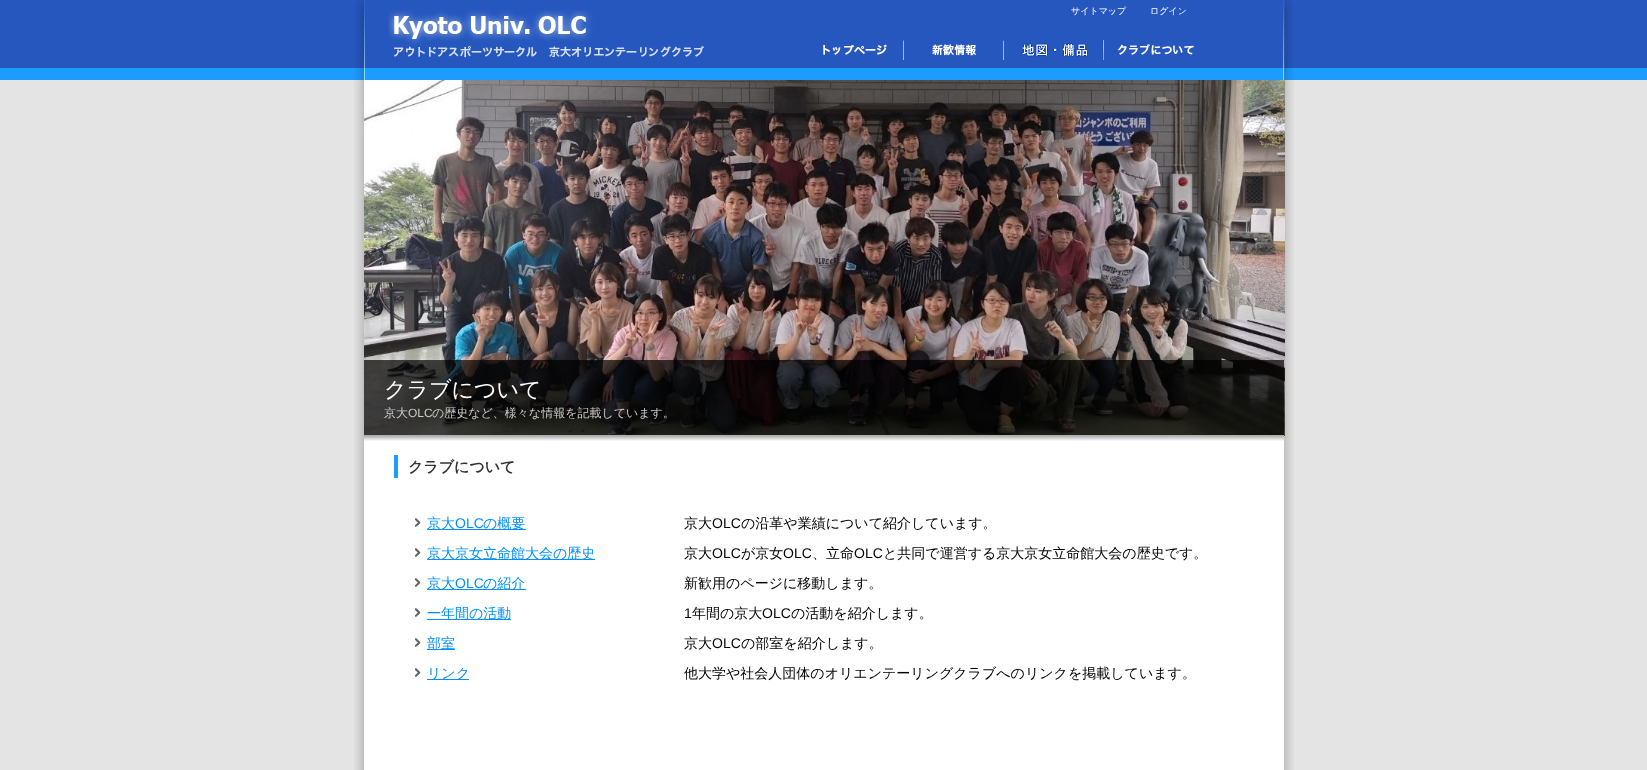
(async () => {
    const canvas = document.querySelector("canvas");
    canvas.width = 1647;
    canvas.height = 770;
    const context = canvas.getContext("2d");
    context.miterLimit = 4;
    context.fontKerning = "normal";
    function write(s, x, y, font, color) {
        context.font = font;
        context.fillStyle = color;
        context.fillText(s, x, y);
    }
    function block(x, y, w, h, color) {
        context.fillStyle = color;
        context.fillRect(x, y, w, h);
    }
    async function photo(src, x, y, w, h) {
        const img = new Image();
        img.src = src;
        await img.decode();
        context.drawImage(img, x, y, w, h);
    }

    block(0, 0, 1647, 770, "rgb(228, 228, 228)");
    block(0, 0, 1647, 68, "rgb(37, 87, 190)");
    block(0, 68, 1647, 12, "rgb(29, 156, 255)");
    block(364, 441, 920, 329, "rgb(255, 255, 255)");
    await photo("media/1.png", 354, 0, 11, 80);
    await photo("media/2.png", 388, 10, 316, 48);
    write("サイトマップ", 1071, 14, "500 9px WenQuanYi Zen Hei", "rgb(255, 255, 255)");
    write("ログイン", 1150, 14, "500 9px WenQuanYi Zen Hei", "rgb(255, 255, 255)");
    await photo("media/3.png", 1283, 0, 11, 80);
    await photo("media/4.png", 823, 40, 81, 20);
    await photo("media/5.png", 932, 40, 72, 20);
    await photo("media/6.png", 1021, 40, 83, 20);
    await photo("media/7.png", 1117, 44, 77, 11);
    await photo("media/8.png", 354, 80, 10, 690);
    await photo("media/11.png", 1284, 80, 10, 690);
    await photo("media/9.png", 364, 80, 921, 356);
    block(364, 360, 920, 75, "rgba(0, 0, 0, 0.7)");
    write("クラブについて", 384, 397, "500 22px WenQuanYi Zen Hei", "rgb(255, 255, 255)");
    write("京大", 384, 417, "500 12px WenQuanYi Zen Hei", "rgb(204, 204, 204)");
    write("OLC", 408, 417, "12px Liberation Sans", "rgb(204, 204, 204)");
    write("の歴史など、様々な情報を記載しています。", 432, 417, "500 12px WenQuanYi Zen Hei", "rgb(204, 204, 204)");
    await photo("media/10.png", 364, 435, 920, 6);
    block(394, 455, 4, 23, "rgb(29, 156, 255)");
    write("クラブについて", 408, 472, "bold 15px WenQuanYi Zen Hei", "rgb(51, 51, 51)");
    await photo("media/12.png", 415, 518, 6, 9);
    block(427, 529, 99, 1, "rgb(0, 143, 255)");
    write("京大", 427, 528, "500 14px WenQuanYi Zen Hei", "rgb(0, 143, 255)");
    write("OLC", 455, 528, "14px Liberation Sans", "rgb(0, 143, 255)");
    write("の概要", 483, 528, "500 14px WenQuanYi Zen Hei", "rgb(0, 143, 255)");
    write("京大", 684, 528, "500 14px WenQuanYi Zen Hei", "rgb(0, 0, 0)");
    write("OLC", 712, 528, "14px Liberation Sans", "rgb(0, 0, 0)");
    write("の沿革や業績について紹介しています。", 741, 528, "500 14px WenQuanYi Zen Hei", "rgb(0, 0, 0)");
    await photo("media/12.png", 415, 548, 6, 9);
    block(427, 559, 168, 1, "rgb(0, 143, 255)");
    write("京大京女立命館大会の歴史", 427, 558, "500 14px WenQuanYi Zen Hei", "rgb(0, 143, 255)");
    write("京大", 684, 558, "500 14px WenQuanYi Zen Hei", "rgb(0, 0, 0)");
    write("OLC", 712, 558, "14px Liberation Sans", "rgb(0, 0, 0)");
    write("が京女", 741, 558, "500 14px WenQuanYi Zen Hei", "rgb(0, 0, 0)");
    write("OLC", 783, 558, "14px Liberation Sans", "rgb(0, 0, 0)");
    write("、立命", 812, 558, "500 14px WenQuanYi Zen Hei", "rgb(0, 0, 0)");
    write("OLC", 854, 558, "14px Liberation Sans", "rgb(0, 0, 0)");
    write("と共同で運営する京大京女立命館大会の歴史です。", 883, 558, "500 14px WenQuanYi Zen Hei", "rgb(0, 0, 0)");
    await photo("media/12.png", 415, 578, 6, 9);
    block(427, 589, 99, 1, "rgb(0, 143, 255)");
    write("京大", 427, 588, "500 14px WenQuanYi Zen Hei", "rgb(0, 143, 255)");
    write("OLC", 455, 588, "14px Liberation Sans", "rgb(0, 143, 255)");
    write("の紹介", 483, 588, "500 14px WenQuanYi Zen Hei", "rgb(0, 143, 255)");
    write("新歓用のページに移動します。", 684, 588, "500 14px WenQuanYi Zen Hei", "rgb(0, 0, 0)");
    await photo("media/12.png", 415, 608, 6, 9);
    block(427, 619, 84, 1, "rgb(0, 143, 255)");
    write("一年間の活動", 427, 618, "500 14px WenQuanYi Zen Hei", "rgb(0, 143, 255)");
    write("1", 684, 618, "14px Liberation Sans", "rgb(0, 0, 0)");
    write("年間の京大", 692, 618, "500 14px WenQuanYi Zen Hei", "rgb(0, 0, 0)");
    write("OLC", 762, 618, "14px Liberation Sans", "rgb(0, 0, 0)");
    write("の活動を紹介します。", 791, 618, "500 14px WenQuanYi Zen Hei", "rgb(0, 0, 0)");
    await photo("media/12.png", 415, 638, 6, 9);
    block(427, 649, 28, 1, "rgb(0, 143, 255)");
    write("部室", 427, 648, "500 14px WenQuanYi Zen Hei", "rgb(0, 143, 255)");
    write("京大", 684, 648, "500 14px WenQuanYi Zen Hei", "rgb(0, 0, 0)");
    write("OLC", 712, 648, "14px Liberation Sans", "rgb(0, 0, 0)");
    write("の部室を紹介します。", 741, 648, "500 14px WenQuanYi Zen Hei", "rgb(0, 0, 0)");
    await photo("media/12.png", 415, 668, 6, 9);
    block(427, 679, 42, 1, "rgb(0, 143, 255)");
    write("リンク", 427, 678, "500 14px WenQuanYi Zen Hei", "rgb(0, 143, 255)");
    write("他大学や社会人団体のオリエンテーリングクラブへのリンクを掲載しています。", 684, 678, "500 14px WenQuanYi Zen Hei", "rgb(0, 0, 0)");
})();
